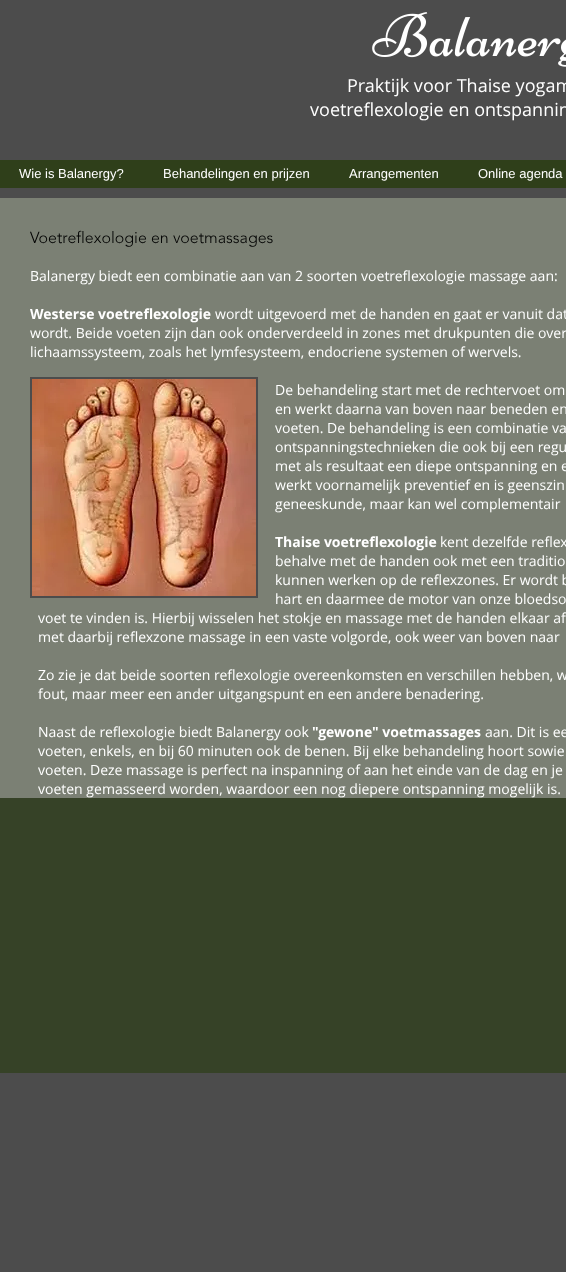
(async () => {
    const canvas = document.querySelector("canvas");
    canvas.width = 566;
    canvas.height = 1272;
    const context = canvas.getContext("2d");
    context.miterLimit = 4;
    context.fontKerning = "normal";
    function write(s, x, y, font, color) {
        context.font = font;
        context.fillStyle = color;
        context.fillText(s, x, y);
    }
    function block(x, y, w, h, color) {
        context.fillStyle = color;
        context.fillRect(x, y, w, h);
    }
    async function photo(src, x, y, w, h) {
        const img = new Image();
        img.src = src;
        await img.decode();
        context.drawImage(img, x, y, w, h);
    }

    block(0, 0, 566, 1272, "rgb(76, 76, 76)");
    await photo("media/1.png", 372, 12, 194, 55);
    write("Praktijk voor Thaise yogam", 347, 92, "18px Open Sans", "rgb(255, 255, 255)");
    write("voetreflexologie en ontspannin", 310, 116, "18px Open Sans", "rgb(255, 255, 255)");
    block(0, 160, 566, 28, "rgb(47, 63, 26)");
    write("Wie is Balanergy?", 19, 178, "13px Liberation Sans", "rgb(255, 255, 255)");
    write("Behandelingen en prijzen", 163, 178, "13px Liberation Sans", "rgb(255, 255, 255)");
    write("Arrangementen", 349, 178, "13px Liberation Sans", "rgb(255, 255, 255)");
    write("Online agenda", 478, 178, "13px Liberation Sans", "rgb(255, 255, 255)");
    block(0, 198, 566, 600, "rgb(123, 128, 116)");
    write("Voetreflexologie en voetmassages", 30, 243, "300 16px 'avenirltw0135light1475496'", "rgb(0, 0, 0)");
    write("Balanergy biedt een combinatie aan van 2 soorten voetreflexologie massage aan:", 30, 281, "14px Open Sans", "rgb(255, 255, 255)");
    write("Westerse voetreflexologie", 30, 319, "bold 14px Open Sans", "rgb(255, 255, 255)");
    write("wordt uitgevoerd met de handen en gaat er vanuit dat", 215, 319, "14px Open Sans", "rgb(255, 255, 255)");
    write("wordt. Beide voeten zijn dan ook onderverdeeld in zones met drukpunten die over", 30, 338, "14px Open Sans", "rgb(255, 255, 255)");
    write("lichaamssysteem, zoals het lymfesysteem, endocriene systemen of wervels.", 30, 357, "14px Open Sans", "rgb(255, 255, 255)");
    block(30, 377, 228, 221, "rgb(76, 76, 76)");
    await photo("media/2.png", 32, 379, 224, 217);
    write("De behandeling start met de rechtervoet om", 275, 395, "14px Open Sans", "rgb(255, 255, 255)");
    write("en werkt daarna van boven naar beneden en", 275, 414, "14px Open Sans", "rgb(255, 255, 255)");
    write("voeten. De behandeling is een combinatie va", 275, 433, "14px Open Sans", "rgb(255, 255, 255)");
    write("ontspanningstechnieken die ook bij een regu", 275, 452, "14px Open Sans", "rgb(255, 255, 255)");
    write("met als resultaat een diepe ontspanning en e", 275, 471, "14px Open Sans", "rgb(255, 255, 255)");
    write("werkt voornamelijk preventief en is geenszin", 275, 490, "14px Open Sans", "rgb(255, 255, 255)");
    write("geneeskunde, maar kan wel complementair", 275, 509, "14px Open Sans", "rgb(255, 255, 255)");
    write("Thaise voetreflexologie", 275, 547, "bold 14px Open Sans", "rgb(255, 255, 255)");
    write("kent dezelfde reflex", 440, 547, "14px Open Sans", "rgb(255, 255, 255)");
    write("behalve met de handen ook met een traditio", 275, 566, "14px Open Sans", "rgb(255, 255, 255)");
    write("kunnen werken op de reflexzones. Er wordt b", 275, 585, "14px Open Sans", "rgb(255, 255, 255)");
    write("hart en daarmee de motor van onze bloedso", 275, 604, "14px Open Sans", "rgb(255, 255, 255)");
    write("voet te vinden is. Hierbij wisselen het stokje en massage met de handen elkaar af", 38, 623, "14px Open Sans", "rgb(255, 255, 255)");
    write("met daarbij reflexzone massage in een vaste volgorde, ook weer van boven naar", 38, 642, "14px Open Sans", "rgb(255, 255, 255)");
    write("Zo zie je dat beide soorten reflexologie overeenkomsten en verschillen hebben, w", 38, 680, "14px Open Sans", "rgb(255, 255, 255)");
    write("fout, maar meer een ander uitgangspunt en een andere benadering.", 38, 699, "14px Open Sans", "rgb(255, 255, 255)");
    write("Naast de reflexologie biedt Balanergy ook", 38, 737, "14px Open Sans", "rgb(255, 255, 255)");
    write("\"gewone\" voetmassages", 312, 737, "bold 14px Open Sans", "rgb(255, 255, 255)");
    write("aan. Dit is ee", 485, 737, "14px Open Sans", "rgb(255, 255, 255)");
    write("voeten, enkels, en bij 60 minuten ook de benen. Bij elke behandeling hoort sowie", 38, 756, "14px Open Sans", "rgb(255, 255, 255)");
    write("voeten. Deze massage is perfect na inspanning of aan het einde van de dag en je", 38, 775, "14px Open Sans", "rgb(255, 255, 255)");
    write("voeten gemasseerd worden, waardoor een nog diepere ontspanning mogelijk is.", 38, 794, "14px Open Sans", "rgb(255, 255, 255)");
    block(0, 798, 566, 275, "rgb(54, 66, 39)");
})();
